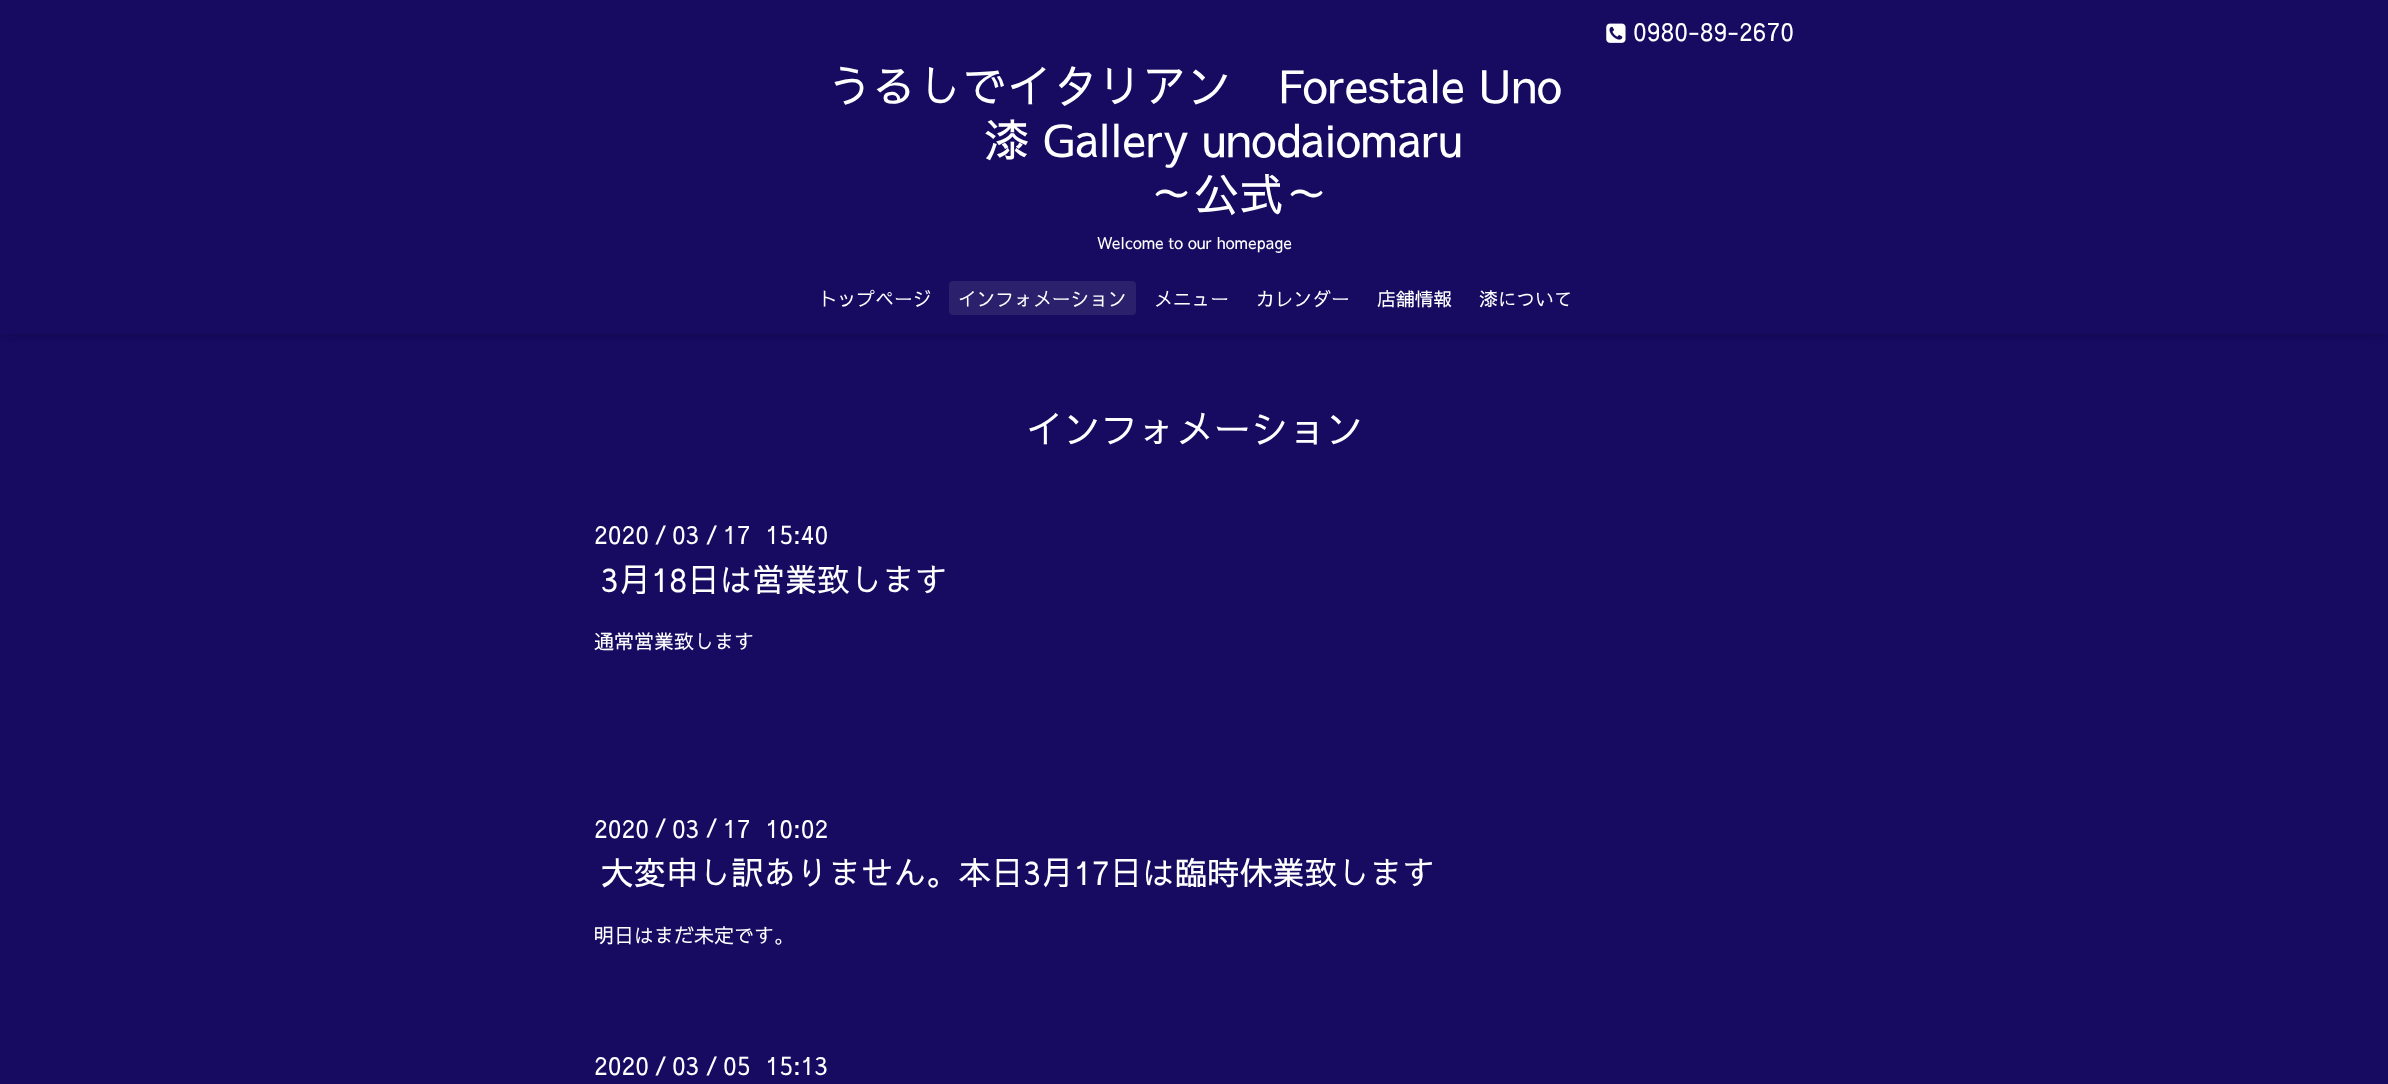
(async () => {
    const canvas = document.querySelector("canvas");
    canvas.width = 2388;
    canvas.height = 1084;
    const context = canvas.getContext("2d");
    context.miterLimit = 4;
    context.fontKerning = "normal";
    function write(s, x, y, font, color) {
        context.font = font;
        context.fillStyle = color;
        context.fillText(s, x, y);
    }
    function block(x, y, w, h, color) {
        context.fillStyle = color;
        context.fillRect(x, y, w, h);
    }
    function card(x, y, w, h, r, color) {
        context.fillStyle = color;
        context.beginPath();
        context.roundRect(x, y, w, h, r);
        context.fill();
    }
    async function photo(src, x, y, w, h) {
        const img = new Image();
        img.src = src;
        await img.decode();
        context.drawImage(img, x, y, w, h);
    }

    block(0, 0, 2388, 1084, "rgb(22, 10, 97)");
    context.fillStyle = "rgba(0, 0, 0, 0.6)";
    context.filter = "blur(6px)";
    context.beginPath();
    context.rect(5, 6, 2379, 324);
    context.fill();
    context.filter = "none";
    block(0, 0, 2388, 334, "rgb(22, 10, 97)");
    await photo("media/1.png", 1606, 23, 20, 20);
    write("0980-89-2670", 1633, 41, "25px Sawarabi Gothic", "rgb(255, 255, 255)");
    write("うるしでイタリアン　Forestale Uno", 827, 103, "45px Sawarabi Gothic", "rgb(255, 255, 255)");
    write("漆 Gallery unodaiomaru", 984, 157, "45px Sawarabi Gothic", "rgb(255, 255, 255)");
    write("～公式～", 1149, 211, "45px Sawarabi Gothic", "rgb(255, 255, 255)");
    write("Welcome to our homepage", 1097, 249, "16.25px Sawarabi Gothic", "rgb(255, 255, 255)");
    write("トップページ", 819, 306, "18.75px Sawarabi Gothic", "rgb(255, 255, 255)");
    card(949, 281, 187, 34, 4, "rgb(42, 32, 107)");
    write("インフォメーション", 958, 306, "18.75px Sawarabi Gothic", "rgb(255, 255, 255)");
    write("メニュー", 1154, 306, "18.75px Sawarabi Gothic", "rgb(255, 255, 255)");
    write("カレンダー", 1256, 306, "18.75px Sawarabi Gothic", "rgb(255, 255, 255)");
    write("店舗情報", 1377, 306, "18.75px Sawarabi Gothic", "rgb(255, 255, 255)");
    write("漆について", 1479, 306, "18.75px Sawarabi Gothic", "rgb(255, 255, 255)");
    write("インフォメーション", 1026, 443, "37.5px Sawarabi Gothic", "rgb(255, 255, 255)");
    write("2020", 594, 544, "25px Sawarabi Gothic", "rgb(255, 255, 255)");
    write("/", 655, 542, "bold 20px Sawarabi Gothic", "rgb(255, 255, 255)");
    write("03", 672, 544, "25px Sawarabi Gothic", "rgb(255, 255, 255)");
    write("/", 706, 542, "bold 20px Sawarabi Gothic", "rgb(255, 255, 255)");
    write("17  15:40", 723, 544, "25px Sawarabi Gothic", "rgb(255, 255, 255)");
    write("3月18日は営業致します", 601, 592, "32.5px Sawarabi Gothic", "rgb(255, 255, 255)");
    write("通常営業致します", 594, 649, "20px Sawarabi Gothic", "rgb(255, 255, 255)");
    write("2020", 594, 838, "25px Sawarabi Gothic", "rgb(255, 255, 255)");
    write("/", 655, 835, "bold 20px Sawarabi Gothic", "rgb(255, 255, 255)");
    write("03", 672, 838, "25px Sawarabi Gothic", "rgb(255, 255, 255)");
    write("/", 706, 835, "bold 20px Sawarabi Gothic", "rgb(255, 255, 255)");
    write("17  10:02", 723, 838, "25px Sawarabi Gothic", "rgb(255, 255, 255)");
    write("大変申し訳ありません。本日3月17日は臨時休業致します", 601, 885, "32.5px Sawarabi Gothic", "rgb(255, 255, 255)");
    write("明日はまだ未定です。", 594, 943, "20px Sawarabi Gothic", "rgb(255, 255, 255)");
    write("2020", 594, 1075, "25px Sawarabi Gothic", "rgb(255, 255, 255)");
    write("/", 655, 1073, "bold 20px Sawarabi Gothic", "rgb(255, 255, 255)");
    write("03", 672, 1075, "25px Sawarabi Gothic", "rgb(255, 255, 255)");
    write("/", 706, 1073, "bold 20px Sawarabi Gothic", "rgb(255, 255, 255)");
    write("05  15:13", 723, 1075, "25px Sawarabi Gothic", "rgb(255, 255, 255)");
})();
